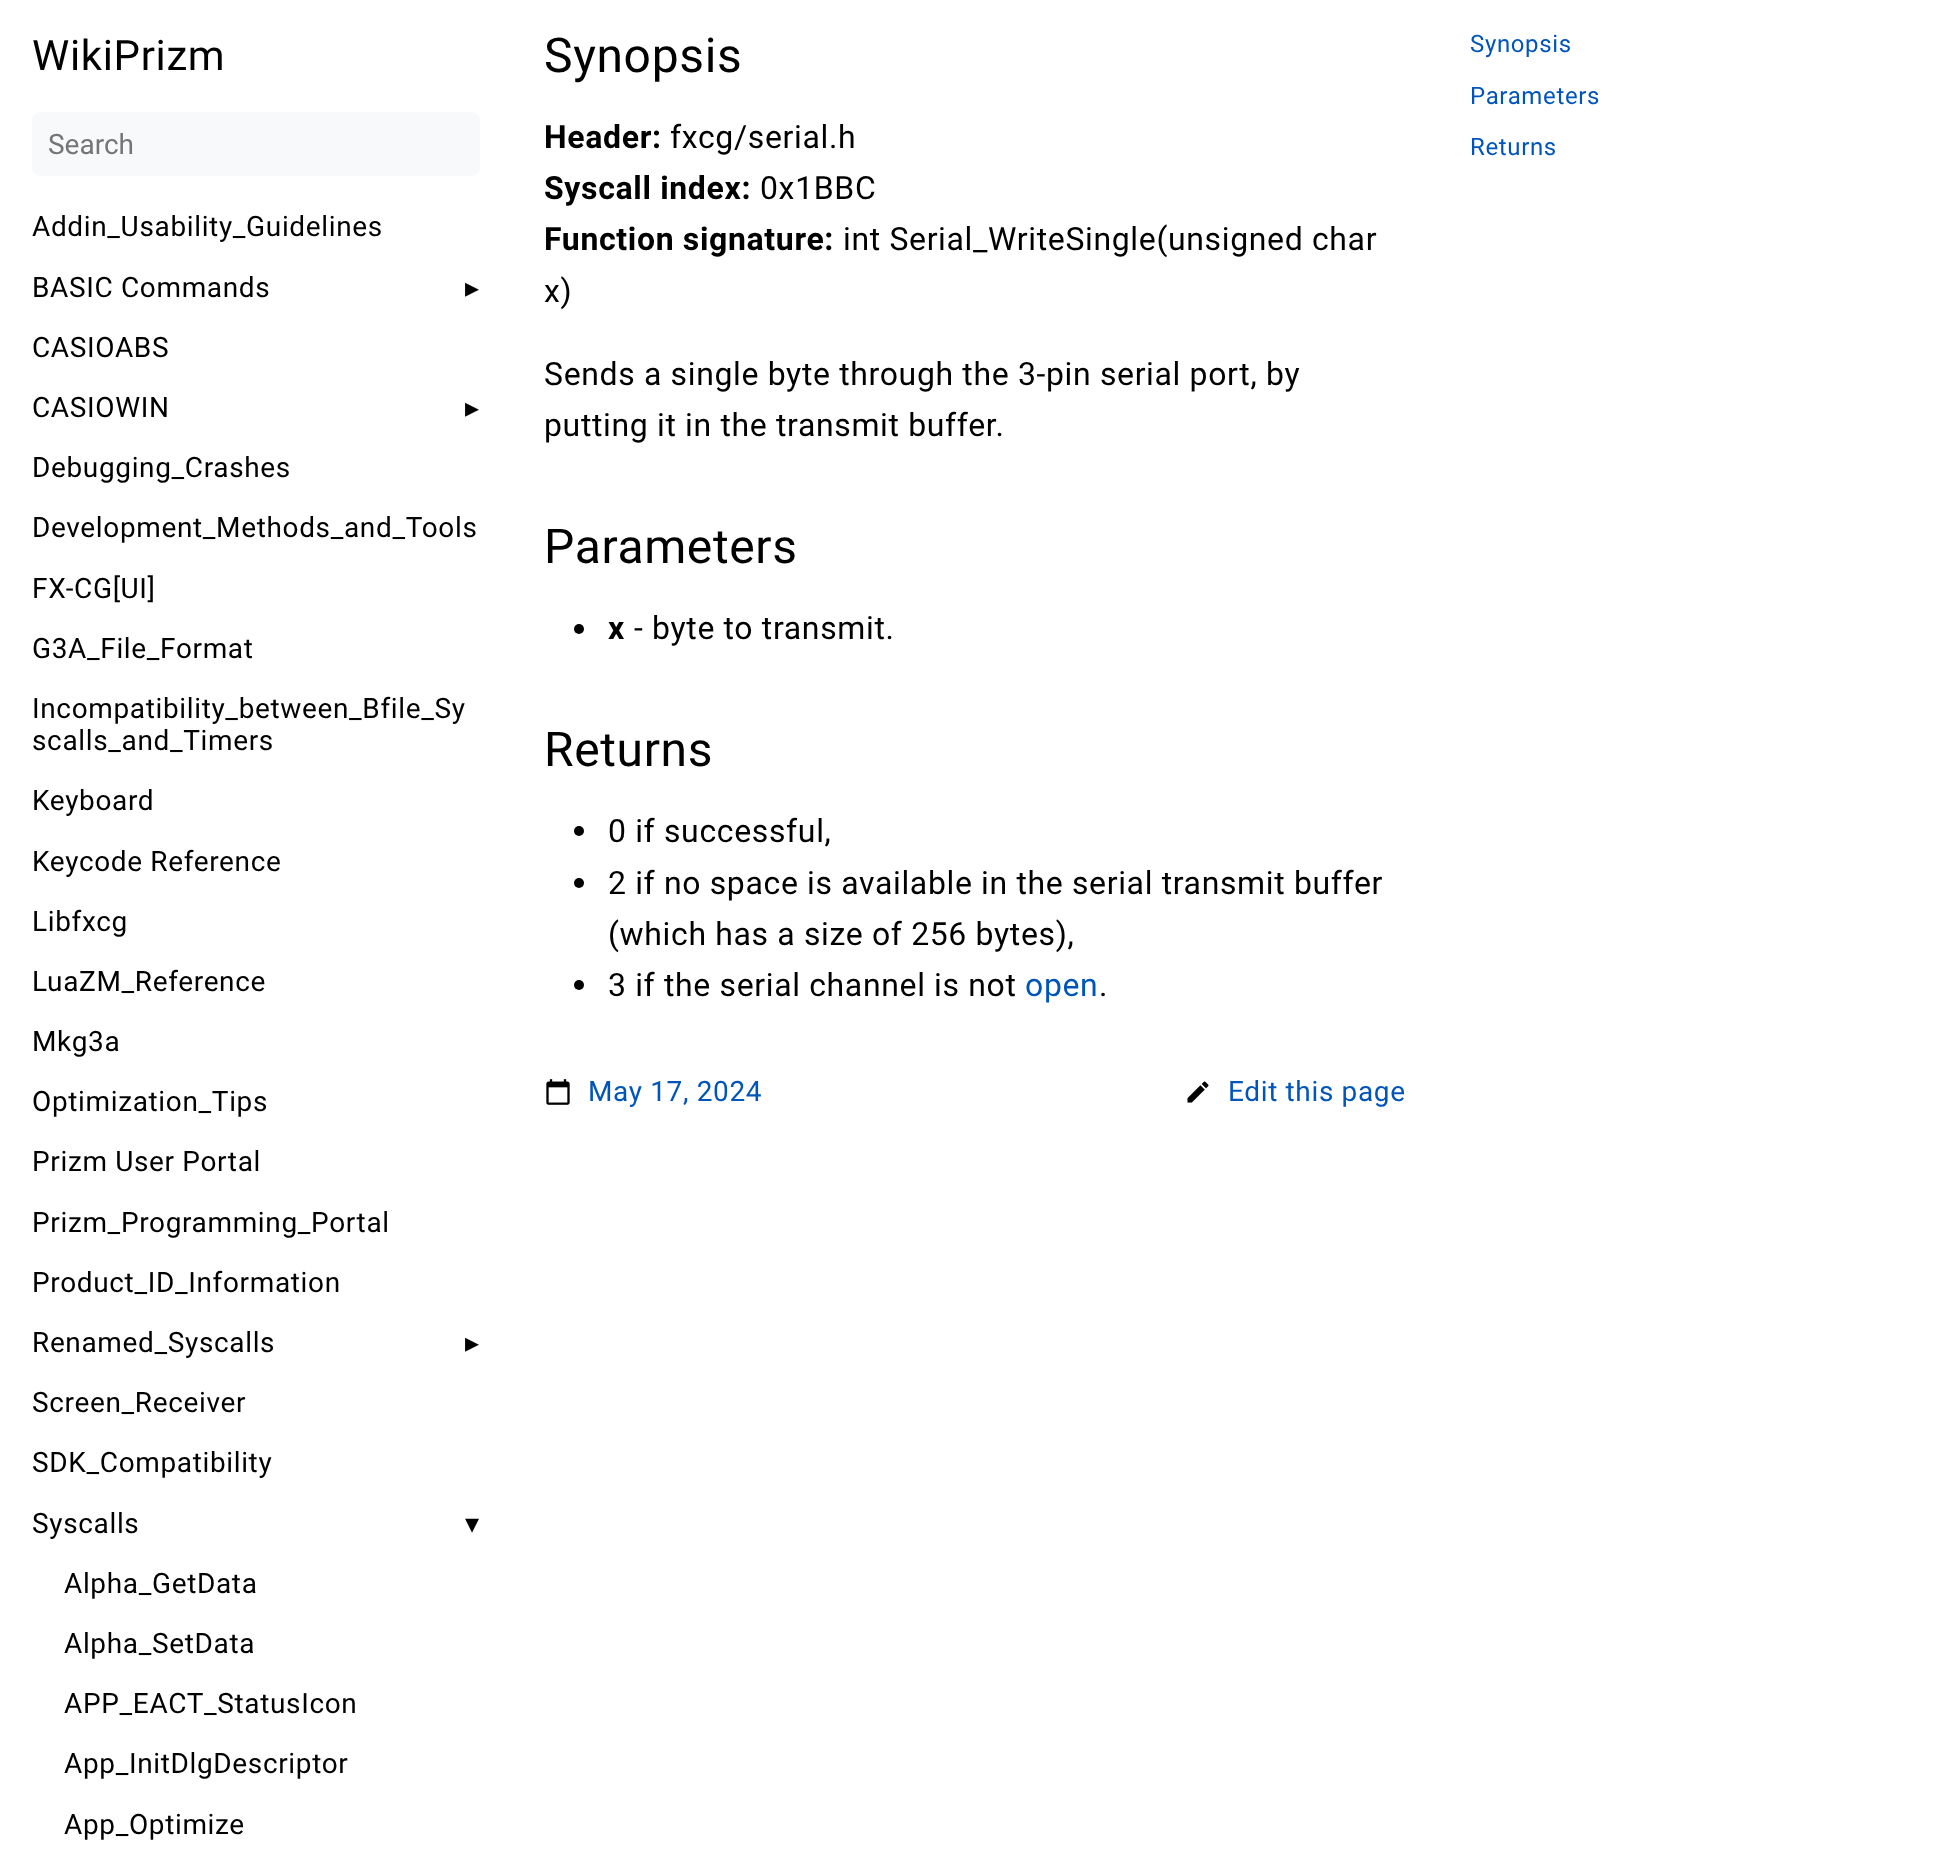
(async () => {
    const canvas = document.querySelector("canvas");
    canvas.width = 1950;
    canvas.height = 1854;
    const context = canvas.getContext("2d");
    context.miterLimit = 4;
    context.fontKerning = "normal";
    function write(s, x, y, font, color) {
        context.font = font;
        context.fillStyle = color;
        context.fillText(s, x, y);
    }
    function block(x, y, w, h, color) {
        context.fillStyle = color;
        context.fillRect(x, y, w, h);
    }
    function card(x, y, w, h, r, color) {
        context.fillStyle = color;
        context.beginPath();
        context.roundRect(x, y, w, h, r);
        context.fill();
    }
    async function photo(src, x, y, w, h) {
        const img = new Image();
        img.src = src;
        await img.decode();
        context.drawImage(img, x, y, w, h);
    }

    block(0, 0, 1950, 1854, "rgb(255, 255, 255)");
    context.letterSpacing = "0.65px";
    write("WikiPrizm", 32, 70, "42px Roboto", "rgb(0, 0, 0)");
    card(32, 112, 448, 64, 8, "rgb(248, 249, 250)");
    context.letterSpacing = "0px";
    write("Search", 48, 154, "28px Roboto", "rgb(117, 117, 117)");
    context.letterSpacing = "0.65px";
    write("Addin_Usability_Guidelines", 32, 236, "28px Roboto", "rgb(0, 0, 0)");
    write("BASIC Commands", 32, 297, "28px Roboto", "rgb(0, 0, 0)");
    write("▸", 465, 297, "28px DejaVu Sans", "rgb(0, 0, 0)");
    write("CASIOABS", 32, 357, "28px Roboto", "rgb(0, 0, 0)");
    write("CASIOWIN", 32, 417, "28px Roboto", "rgb(0, 0, 0)");
    write("▸", 465, 417, "28px DejaVu Sans", "rgb(0, 0, 0)");
    write("Debugging_Crashes", 32, 477, "28px Roboto", "rgb(0, 0, 0)");
    write("Development_Methods_and_Tools", 32, 537, "28px Roboto", "rgb(0, 0, 0)");
    write("FX-CG[UI]", 32, 598, "28px Roboto", "rgb(0, 0, 0)");
    write("G3A_File_Format", 32, 658, "28px Roboto", "rgb(0, 0, 0)");
    write("Incompatibility_between_Bfile_Sy", 32, 718, "28px Roboto", "rgb(0, 0, 0)");
    write("scalls_and_Timers", 32, 750, "28px Roboto", "rgb(0, 0, 0)");
    write("Keyboard", 32, 810, "28px Roboto", "rgb(0, 0, 0)");
    write("Keycode Reference", 32, 871, "28px Roboto", "rgb(0, 0, 0)");
    write("Libfxcg", 32, 931, "28px Roboto", "rgb(0, 0, 0)");
    write("LuaZM_Reference", 32, 991, "28px Roboto", "rgb(0, 0, 0)");
    write("Mkg3a", 32, 1051, "28px Roboto", "rgb(0, 0, 0)");
    write("Optimization_Tips", 32, 1111, "28px Roboto", "rgb(0, 0, 0)");
    write("Prizm User Portal", 32, 1171, "28px Roboto", "rgb(0, 0, 0)");
    write("Prizm_Programming_Portal", 32, 1232, "28px Roboto", "rgb(0, 0, 0)");
    write("Product_ID_Information", 32, 1292, "28px Roboto", "rgb(0, 0, 0)");
    write("Renamed_Syscalls", 32, 1352, "28px Roboto", "rgb(0, 0, 0)");
    write("▸", 465, 1352, "28px DejaVu Sans", "rgb(0, 0, 0)");
    write("Screen_Receiver", 32, 1412, "28px Roboto", "rgb(0, 0, 0)");
    write("SDK_Compatibility", 32, 1472, "28px Roboto", "rgb(0, 0, 0)");
    write("Syscalls", 32, 1533, "28px Roboto", "rgb(0, 0, 0)");
    write("▾", 465, 1533, "28px DejaVu Sans", "rgb(0, 0, 0)");
    write("Alpha_GetData", 64, 1593, "28px Roboto", "rgb(0, 0, 0)");
    write("Alpha_SetData", 64, 1653, "28px Roboto", "rgb(0, 0, 0)");
    write("APP_EACT_StatusIcon", 64, 1713, "28px Roboto", "rgb(0, 0, 0)");
    write("App_InitDlgDescriptor", 64, 1773, "28px Roboto", "rgb(0, 0, 0)");
    write("App_Optimize", 64, 1834, "28px Roboto", "rgb(0, 0, 0)");
    write("Synopsis", 544, 72, "48px Roboto", "rgb(0, 0, 0)");
    write("Header:", 544, 148, "bold 32px Roboto", "rgb(0, 0, 0)");
    write("fxcg/serial.h", 670, 148, "32px Roboto", "rgb(0, 0, 0)");
    write("Syscall index:", 544, 199, "bold 32px Roboto", "rgb(0, 0, 0)");
    write("0x1BBC", 760, 199, "32px Roboto", "rgb(0, 0, 0)");
    write("Function signature:", 544, 250, "bold 32px Roboto", "rgb(0, 0, 0)");
    write("int Serial_WriteSingle(unsigned char", 843, 250, "32px Roboto", "rgb(0, 0, 0)");
    write("x)", 544, 302, "32px Roboto", "rgb(0, 0, 0)");
    write("Sends a single byte through the 3-pin serial port, by", 544, 385, "32px Roboto", "rgb(0, 0, 0)");
    write("putting it in the transmit buffer.", 544, 436, "32px Roboto", "rgb(0, 0, 0)");
    write("Parameters", 544, 563, "48px Roboto", "rgb(0, 0, 0)");
    context.beginPath();
    context.arc(579, 629, 5, 0, Math.PI * 2);
    context.fill();
    write("x", 608, 639, "bold 32px Roboto", "rgb(0, 0, 0)");
    write("- byte to transmit.", 634, 639, "32px Roboto", "rgb(0, 0, 0)");
    write("Returns", 544, 766, "48px Roboto", "rgb(0, 0, 0)");
    context.beginPath();
    context.arc(579, 831, 5, 0, Math.PI * 2);
    context.fill();
    write("0 if successful,", 608, 842, "32px Roboto", "rgb(0, 0, 0)");
    context.beginPath();
    context.arc(579, 883, 5, 0, Math.PI * 2);
    context.fill();
    write("2 if no space is available in the serial transmit buffer", 608, 894, "32px Roboto", "rgb(0, 0, 0)");
    write("(which has a size of 256 bytes),", 608, 945, "32px Roboto", "rgb(0, 0, 0)");
    context.beginPath();
    context.arc(579, 985, 5, 0, Math.PI * 2);
    context.fill();
    write("3 if the serial channel is not", 608, 996, "32px Roboto", "rgb(0, 0, 0)");
    write("open", 1025, 996, "32px Roboto", "rgb(0, 85, 187)");
    write(".", 1099, 996, "32px Roboto", "rgb(0, 0, 0)");
    await photo("media/1.png", 546, 1079, 24, 26);
    write("May 17, 2024", 588, 1101, "28px Roboto", "rgb(0, 85, 187)");
    await photo("media/2.png", 1187, 1081, 22, 22);
    write("Edit this page", 1228, 1101, "28px Roboto", "rgb(0, 85, 187)");
    write("Synopsis", 1470, 52, "24px Roboto", "rgb(0, 85, 187)");
    write("Parameters", 1470, 104, "24px Roboto", "rgb(0, 85, 187)");
    write("Returns", 1470, 155, "24px Roboto", "rgb(0, 85, 187)");
})();
